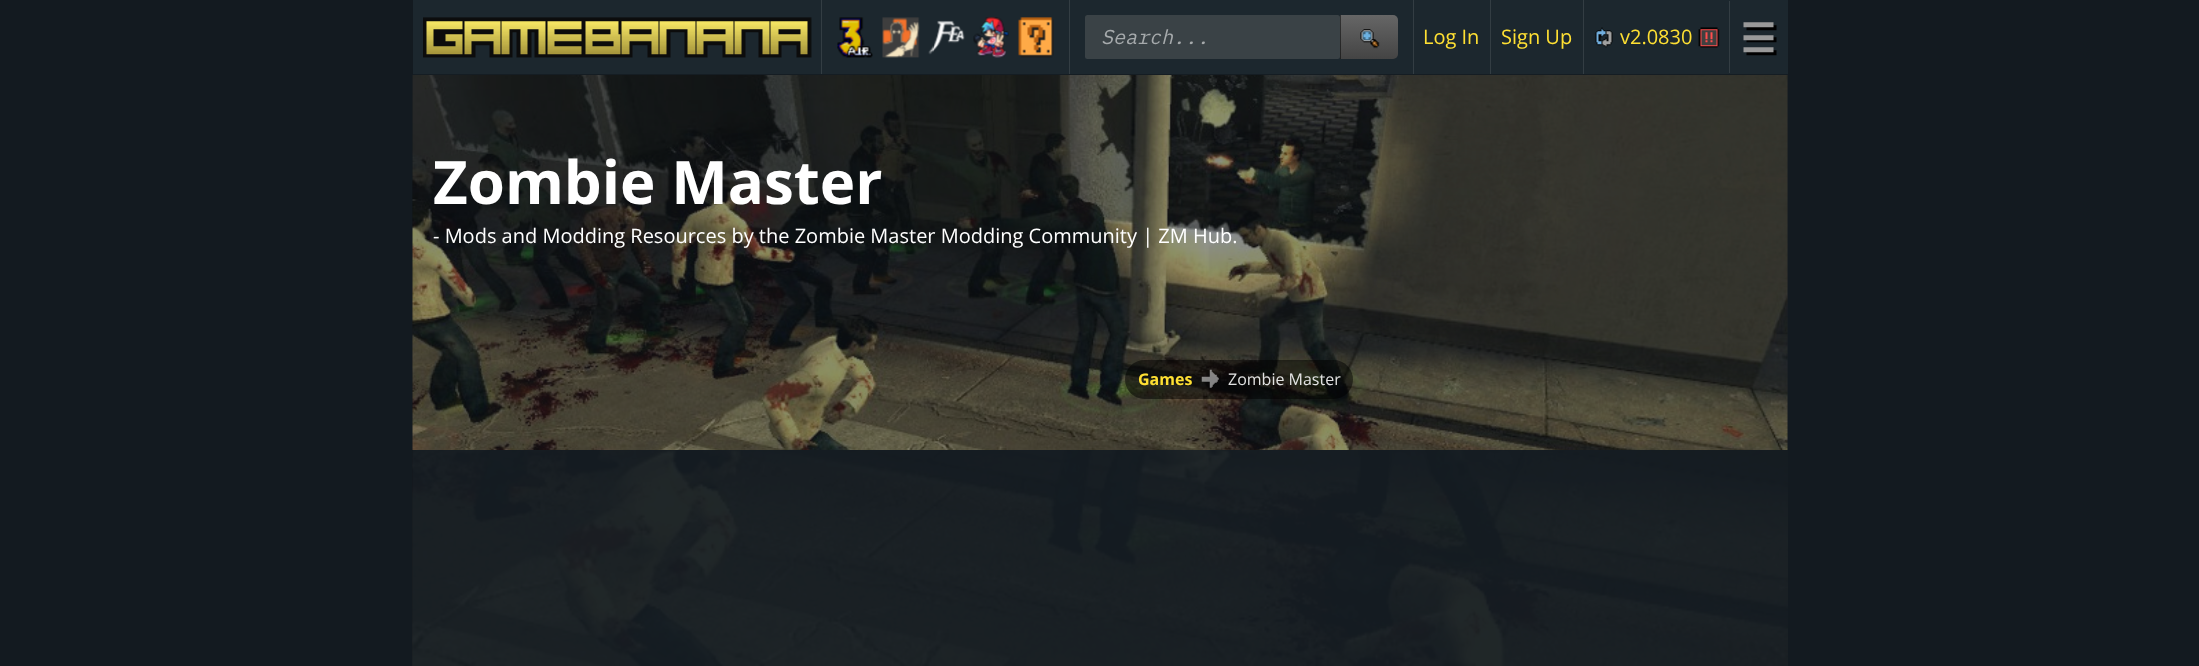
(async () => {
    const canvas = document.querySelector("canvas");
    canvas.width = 2199;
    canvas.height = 666;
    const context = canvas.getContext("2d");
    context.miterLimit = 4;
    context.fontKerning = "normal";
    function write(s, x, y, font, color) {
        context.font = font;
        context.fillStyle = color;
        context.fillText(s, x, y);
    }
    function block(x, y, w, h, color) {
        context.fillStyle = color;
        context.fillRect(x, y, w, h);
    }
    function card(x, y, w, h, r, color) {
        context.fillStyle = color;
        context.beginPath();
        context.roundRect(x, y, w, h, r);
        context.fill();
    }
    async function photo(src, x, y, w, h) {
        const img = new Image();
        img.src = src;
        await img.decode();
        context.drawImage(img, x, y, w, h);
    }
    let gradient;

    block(0, 0, 2199, 666, "rgb(19, 26, 32)");
    block(413, 0, 1375, 74, "rgb(28, 39, 46)");
    await photo("media/1.png", 423, 17, 389, 41);
    block(821, 0, 1, 74, "rgb(51, 61, 67)");
    await photo("media/2.png", 837, 17, 36, 41);
    await photo("media/3.png", 882, 17, 38, 41);
    await photo("media/4.png", 928, 20, 37, 35);
    await photo("media/5.png", 973, 17, 36, 41);
    await photo("media/6.png", 1018, 17, 36, 41);
    block(1069, 0, 1, 74, "rgb(51, 61, 67)");
    card(1085, 15, 255, 44, 2.5, "rgb(58, 66, 70)");
    write("Search...", 1101, 44, "italic 20px IBM Plex Mono", "rgb(166, 170, 172)");
    gradient = context.createLinearGradient(1369, 15, 1369, 59);
    gradient.addColorStop(0, "rgb(102, 102, 102)");
    gradient.addColorStop(1, "rgb(68, 68, 68)");
    context.fillStyle = gradient;
    context.beginPath();
    context.roundRect(1340, 15, 58, 44, [0, 5, 5, 0]);
    context.fill();
    gradient = context.createLinearGradient(1369, 15, 1369, 59);
    gradient.addColorStop(0, "rgb(51, 51, 51)");
    gradient.addColorStop(1, "rgb(34, 34, 34)");
    context.fillStyle = gradient;
    context.fillRect(1340, 15, 1, 44);
    await photo("media/7.png", 1360, 29, 20, 20);
    block(1413, 0, 1, 74, "rgb(51, 61, 67)");
    write("Log In", 1423, 44, "20px Open Sans", "rgb(255, 224, 51)");
    block(1490, 0, 1, 74, "rgb(51, 61, 67)");
    write("Sign Up", 1501, 44, "20px Open Sans", "rgb(255, 224, 51)");
    block(1583, 0, 1, 74, "rgb(51, 61, 67)");
    await photo("media/8.png", 1595, 27, 18, 21);
    write("v2.0830", 1620, 44, "20px Open Sans", "rgb(255, 224, 51)");
    await photo("media/9.png", 1698, 27, 22, 21);
    block(1729, 1, 1, 72, "rgb(51, 61, 67)");
    await photo("media/10.png", 1743, 22, 34, 34);
    block(413, 74, 1375, 592, "rgb(21, 29, 35)");
    await photo("media/11.png", 412, 75, 1376, 591);
    await photo("media/12.png", 412, 75, 1376, 375);
    write("Zombie Master", 433, 204, "bold 60px Open Sans", "rgb(255, 255, 255)");
    write("- Mods and Modding Resources by the Zombie Master Modding Community | ZM Hub.", 433, 243, "20px Open Sans", "rgb(255, 255, 255)");
    card(1125, 360, 228, 39, 19.5, "rgba(0, 0, 0, 0.5)");
    write("Games", 1138, 385, "bold 16px Open Sans", "rgb(255, 224, 51)");
    await photo("media/13.png", 1201, 369, 18, 19);
    write("Zombie Master", 1228, 385, "16px Open Sans", "rgb(226, 226, 226)");
})();
